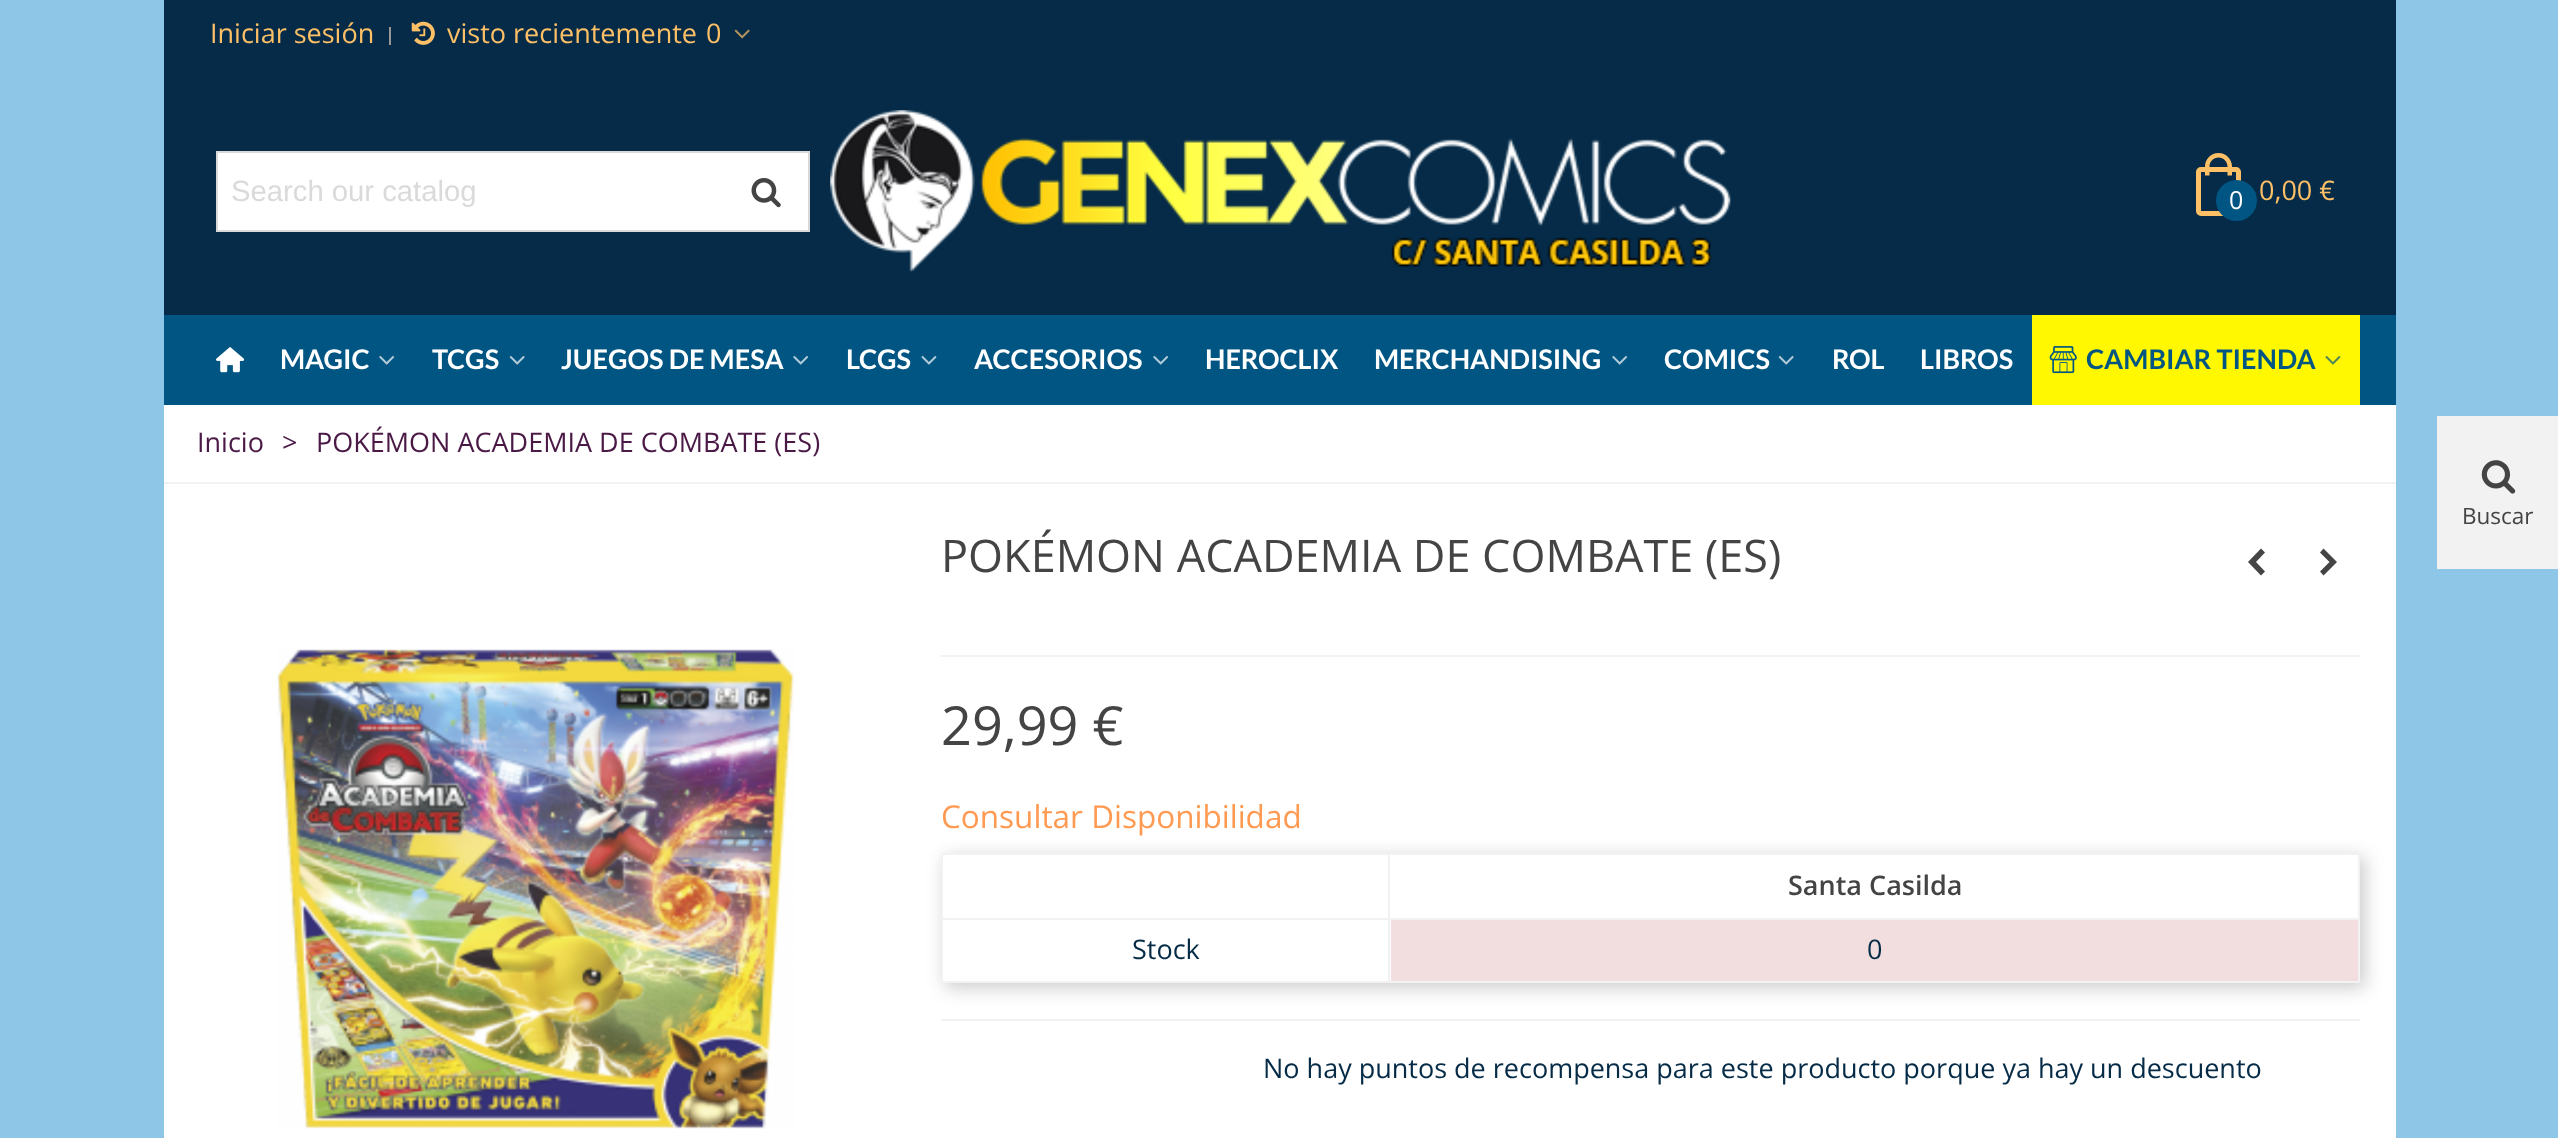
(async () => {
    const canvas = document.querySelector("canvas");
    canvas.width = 2558;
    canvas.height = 1138;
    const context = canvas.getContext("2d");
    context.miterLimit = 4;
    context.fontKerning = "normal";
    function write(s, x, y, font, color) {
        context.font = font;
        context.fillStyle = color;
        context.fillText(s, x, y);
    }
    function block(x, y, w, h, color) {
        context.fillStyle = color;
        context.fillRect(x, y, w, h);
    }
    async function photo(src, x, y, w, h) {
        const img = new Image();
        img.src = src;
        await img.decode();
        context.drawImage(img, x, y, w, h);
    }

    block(0, 0, 2558, 1138, "rgb(141, 198, 230)");
    block(164, 405, 2232, 733, "rgb(255, 255, 255)");
    block(164, 0, 2232, 315, "rgb(5, 43, 72)");
    write("Iniciar sesión", 210, 43, "27px Open Sans", "rgb(253, 192, 102)");
    block(389, 27, 2, 18, "rgb(153, 153, 153)");
    await photo("media/1.png", 411, 21, 24, 24);
    write("visto recientemente", 447, 43, "27px Open Sans", "rgb(253, 192, 102)");
    write("0", 706, 43, "27px Open Sans", "rgb(253, 192, 102)");
    await photo("media/2.png", 734, 29, 16, 10);
    context.fillStyle = "rgb(255, 255, 255)";
    context.beginPath();
    context.rect(217, 152, 592, 79);
    context.fill();
    context.strokeStyle = "rgb(217, 217, 217)";
    context.lineWidth = 2;
    context.stroke();
    write("Search our catalog", 231, 201, "29.25px Liberation Sans", "rgb(218, 218, 218)");
    await photo("media/3.png", 751, 178, 30, 30);
    await photo("media/4.png", 830, 110, 901, 163);
    context.beginPath();
    context.roundRect(2198.5, 169.5, 40, 44, 2.5);
    context.strokeStyle = "rgb(253, 192, 102)";
    context.lineWidth = 5;
    context.stroke();
    context.fillStyle = "rgb(253, 192, 102)";
    context.beginPath();
    context.moveTo(2218.5, 153);
    context.bezierCurveTo(2226, 153, 2232, 159, 2232, 166.5);
    context.lineTo(2232, 175.5);
    context.lineTo(2205, 175.5);
    context.lineTo(2205, 166.5);
    context.bezierCurveTo(2205, 159, 2211, 153, 2218.5, 153);
    context.closePath();
    context.moveTo(2218.5, 157.5);
    context.bezierCurveTo(2223.5, 157.5, 2227.5, 161.5, 2227.5, 166.5);
    context.lineTo(2227.5, 175.5);
    context.lineTo(2209.5, 175.5);
    context.lineTo(2209.5, 166.5);
    context.bezierCurveTo(2209.5, 161.5, 2213.5, 157.5, 2218.5, 157.5);
    context.closePath();
    context.fill("evenodd");
    context.fillStyle = "rgb(1, 85, 131)";
    context.beginPath();
    context.arc(2236.5, 200.5, 18, 0, Math.PI * 2);
    context.fill();
    context.strokeStyle = "rgb(1, 85, 131)";
    context.stroke();
    write("0", 2229, 209, "25px Open Sans", "rgb(255, 255, 255)");
    write("0,00 €", 2259, 200, "27px Open Sans", "rgb(253, 192, 102)");
    block(164, 315, 2232, 90, "rgb(1, 85, 131)");
    await photo("media/5.png", 216, 347, 29, 26);
    write("MAGIC", 280, 369, "bold 27px Lato", "rgb(255, 255, 255)");
    await photo("media/6.png", 379, 355, 16, 10);
    write("TCGS", 432, 369, "bold 27px Lato", "rgb(255, 255, 255)");
    await photo("media/7.png", 509, 355, 16, 10);
    write("JUEGOS DE MESA", 561, 369, "bold 27px Lato", "rgb(255, 255, 255)");
    await photo("media/6.png", 793, 355, 16, 10);
    write("LCGS", 846, 369, "bold 27px Lato", "rgb(255, 255, 255)");
    await photo("media/8.png", 921, 355, 16, 10);
    write("ACCESORIOS", 974, 369, "bold 27px Lato", "rgb(255, 255, 255)");
    await photo("media/6.png", 1153, 355, 16, 10);
    write("HEROCLIX", 1205, 369, "bold 27px Lato", "rgb(255, 255, 255)");
    write("MERCHANDISING", 1374, 369, "bold 27px Lato", "rgb(255, 255, 255)");
    await photo("media/6.png", 1612, 355, 16, 10);
    write("COMICS", 1664, 369, "bold 27px Lato", "rgb(255, 255, 255)");
    await photo("media/7.png", 1778, 355, 16, 10);
    write("ROL", 1832, 369, "bold 27px Lato", "rgb(255, 255, 255)");
    write("LIBROS", 1920, 369, "bold 27px Lato", "rgb(255, 255, 255)");
    block(2032, 315, 328, 90, "rgb(255, 248, 0)");
    await photo("media/9.png", 2049, 346, 28, 28);
    write("CAMBIAR TIENDA", 2086, 369, "bold 27px Lato", "rgb(1, 85, 131)");
    await photo("media/10.png", 2325, 355, 16, 10);
    block(164, 482, 2232, 2, "rgb(242, 242, 242)");
    write("Inicio", 197, 452, "27px Open Sans", "rgb(74, 25, 70)");
    write(">", 282, 452, "27px Open Sans", "rgb(74, 25, 70)");
    write("POKÉMON ACADEMIA DE COMBATE (ES)", 316, 452, "27px Open Sans", "rgb(74, 25, 70)");
    await photo("media/11.png", 277, 649, 518, 480);
    write("POKÉMON ACADEMIA DE COMBATE (ES)", 941, 572, "45px Open Sans", "rgb(68, 68, 68)");
    context.beginPath();
    context.moveTo(2248, 562);
    context.lineTo(2261, 548.5);
    context.lineTo(2265, 552.5);
    context.lineTo(2256, 562);
    context.lineTo(2265, 571.5);
    context.lineTo(2261, 575.5);
    context.closePath();
    context.fill();
    context.beginPath();
    context.moveTo(2320, 571.5);
    context.lineTo(2329.5, 562);
    context.lineTo(2320, 552.5);
    context.lineTo(2323.5, 548.5);
    context.lineTo(2337, 562);
    context.lineTo(2323.5, 575.5);
    context.closePath();
    context.fill();
    block(941, 655, 1419, 2, "rgb(242, 242, 242)");
    write("29,99 €", 941, 745, "54px Open Sans", "rgb(68, 68, 68)");
    context.save();
    context.beginPath();
    context.moveTo(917, 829);
    context.lineTo(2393, 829);
    context.lineTo(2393, 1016);
    context.lineTo(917, 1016);
    context.closePath();
    context.moveTo(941, 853);
    context.lineTo(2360, 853);
    context.lineTo(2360, 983);
    context.lineTo(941, 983);
    context.closePath();
    context.clip("evenodd");
    context.fillStyle = "rgba(0, 0, 0, 0.2)";
    context.filter = "blur(9px)";
    context.beginPath();
    context.rect(945, 857, 1420, 131);
    context.fill();
    context.filter = "none";
    context.restore();
    write("Consultar Disponibilidad", 941, 828, "31.5px Open Sans", "rgb(255, 154, 82)");
    block(941, 853, 1419, 2, "rgb(242, 242, 242)");
    block(2358, 853, 2, 130, "rgb(242, 242, 242)");
    block(941, 981, 1419, 2, "rgb(242, 242, 242)");
    block(941, 853, 2, 130, "rgb(242, 242, 242)");
    block(1388, 918, 972, 2, "rgb(242, 242, 242)");
    block(1388, 918, 2, 65, "rgb(242, 242, 242)");
    block(941, 918, 450, 2, "rgb(242, 242, 242)");
    block(1388, 853, 2, 67, "rgb(242, 242, 242)");
    write("Santa Casilda", 1788, 895, "600 27px Open Sans", "rgb(68, 68, 68)");
    write("Stock", 1132, 959, "27px Open Sans", "rgb(5, 43, 71)");
    block(1391, 920, 967, 61, "rgb(242, 222, 222)");
    write("0", 1867, 959, "27px Open Sans", "rgb(5, 43, 71)");
    block(941, 1019, 1419, 2, "rgb(242, 242, 242)");
    write("No hay puntos de recompensa para este producto porque ya hay un descuento", 1263, 1078, "27px Open Sans", "rgb(5, 43, 71)");
    block(2437, 416, 121, 153, "rgb(242, 242, 242)");
    await photo("media/12.png", 2481, 460, 35, 34);
    write("Buscar", 2462, 524, "22.5px Open Sans", "rgb(68, 68, 68)");
})();
